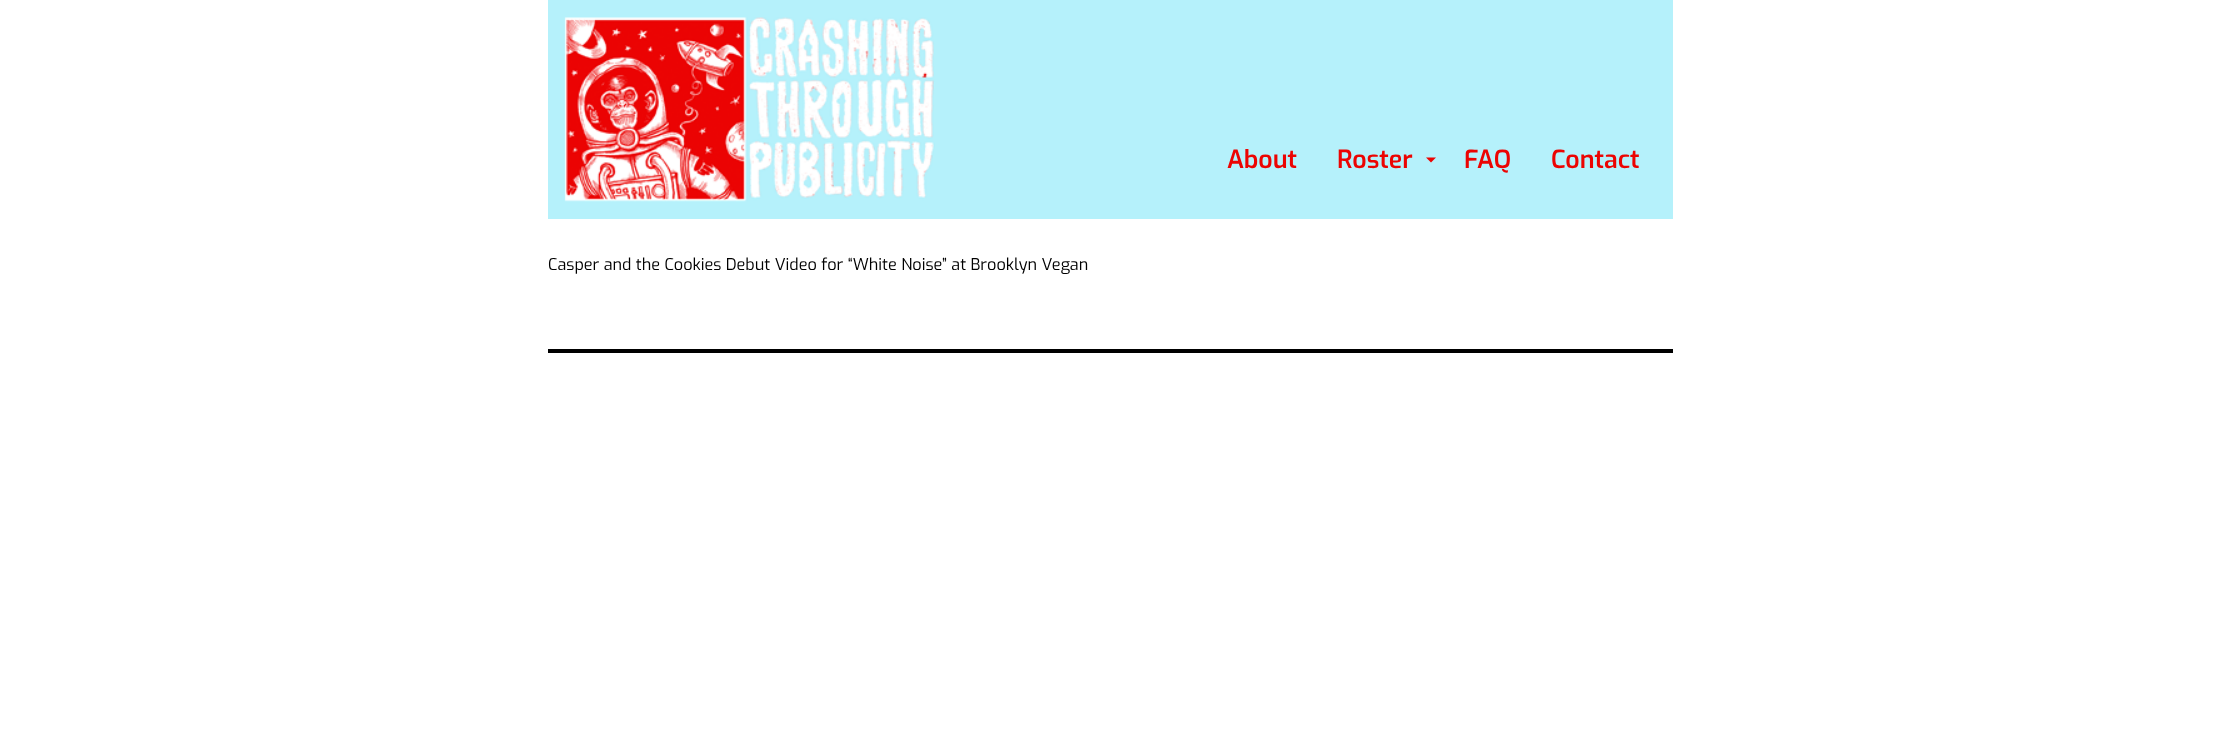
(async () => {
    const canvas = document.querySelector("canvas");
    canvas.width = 2220;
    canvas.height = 730;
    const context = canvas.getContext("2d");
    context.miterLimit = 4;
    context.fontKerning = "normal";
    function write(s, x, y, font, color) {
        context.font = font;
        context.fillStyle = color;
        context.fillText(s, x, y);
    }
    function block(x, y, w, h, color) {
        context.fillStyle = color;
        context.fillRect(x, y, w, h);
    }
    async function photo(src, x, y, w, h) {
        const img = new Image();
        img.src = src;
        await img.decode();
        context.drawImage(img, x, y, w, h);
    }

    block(0, 0, 2220, 730, "rgb(255, 255, 255)");
    block(548, 0, 1125, 219, "rgb(181, 241, 251)");
    await photo("media/1.png", 564, 17, 371, 185);
    write("About", 1227, 168, "600 25px Exo", "rgb(236, 4, 2)");
    write("Roster", 1337, 168, "600 25px Exo", "rgb(236, 4, 2)");
    context.beginPath();
    context.moveTo(1426, 157.5);
    context.lineTo(1436, 157.5);
    context.lineTo(1431, 162.5);
    context.closePath();
    context.fill();
    write("FAQ", 1464, 168, "600 25px Exo", "rgb(236, 4, 2)");
    write("Contact", 1551, 168, "600 25px Exo", "rgb(236, 4, 2)");
    block(548, 349, 1125, 4, "rgb(0, 0, 0)");
    write("Casper and the Cookies Debut Video for “White Noise” at Brooklyn Vegan", 548, 270, "16.25px Exo", "rgb(0, 0, 0)");
})();
